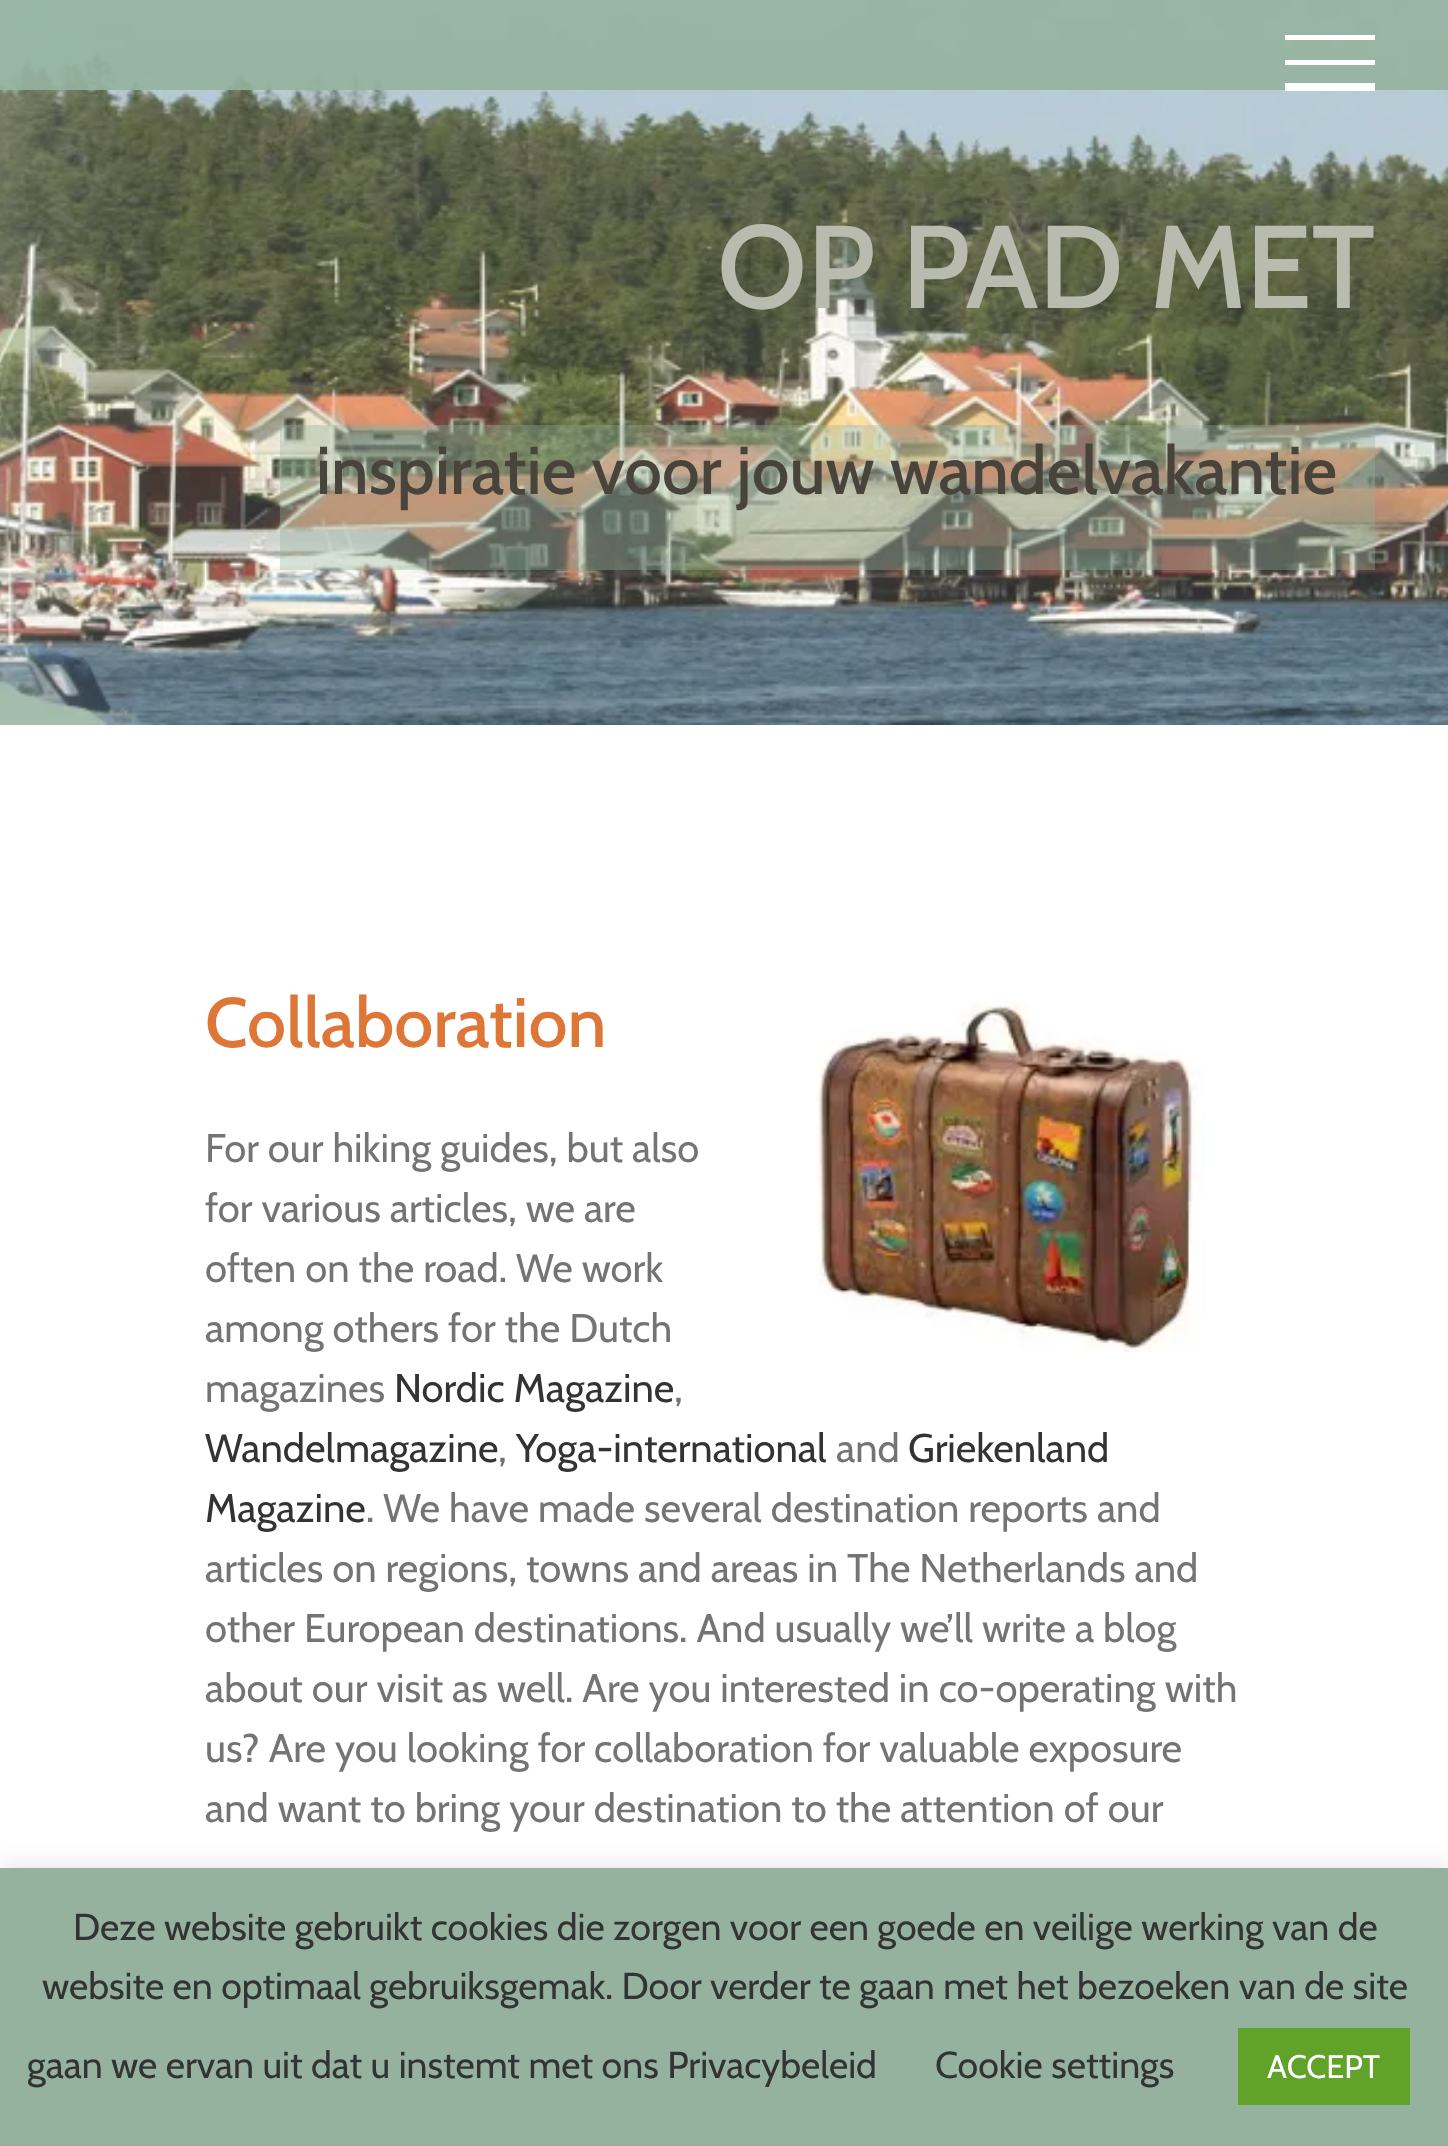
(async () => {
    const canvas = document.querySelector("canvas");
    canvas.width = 1448;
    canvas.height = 2146;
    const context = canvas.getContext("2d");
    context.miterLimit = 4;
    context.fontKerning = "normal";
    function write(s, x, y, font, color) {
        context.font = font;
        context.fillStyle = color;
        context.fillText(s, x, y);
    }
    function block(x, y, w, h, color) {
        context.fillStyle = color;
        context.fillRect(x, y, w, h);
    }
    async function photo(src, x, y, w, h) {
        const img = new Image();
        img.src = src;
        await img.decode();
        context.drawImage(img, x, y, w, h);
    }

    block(0, 0, 1448, 2146, "rgb(255, 255, 255)");
    await photo("media/1.png", 0, 0, 1448, 725);
    block(0, 0, 1448, 90, "rgba(149, 178, 158, 0.9)");
    block(1285, 35, 90, 5, "rgb(255, 255, 255)");
    block(1285, 60, 90, 5, "rgb(255, 255, 255)");
    block(1285, 83, 90, 8, "rgb(255, 255, 255)");
    write("OP PAD MET", 717, 308, "500 117.5px Cabin", "rgb(184, 187, 174)");
    block(280, 425, 1095, 145, "rgba(149, 178, 158, 0.37)");
    write("inspiratie voor jouw wandelvakantie", 316, 494, "500 67.5px Cabin", "rgb(72, 68, 59)");
    write("Collaboration", 205, 1047, "500 70px Cabin", "rgb(221, 118, 55)");
    await photo("media/2.png", 816, 1002, 389, 351);
    write("For our hiking guides, but also", 205, 1162, "40px Cabin", "rgb(116, 116, 116)");
    write("for various articles, we are", 205, 1222, "40px Cabin", "rgb(116, 116, 116)");
    write("often on the road. We work", 205, 1282, "40px Cabin", "rgb(116, 116, 116)");
    write("among others for the Dutch", 205, 1342, "40px Cabin", "rgb(116, 116, 116)");
    write("magazines", 205, 1402, "40px Cabin", "rgb(116, 116, 116)");
    write("Nordic Magazine", 394, 1402, "40px Cabin", "rgb(51, 51, 51)");
    write(",", 674, 1402, "40px Cabin", "rgb(116, 116, 116)");
    write("Wandelmagazine", 205, 1462, "40px Cabin", "rgb(51, 51, 51)");
    write(",", 498, 1462, "40px Cabin", "rgb(116, 116, 116)");
    write("Yoga-international", 516, 1462, "40px Cabin", "rgb(51, 51, 51)");
    write("and", 836, 1462, "40px Cabin", "rgb(116, 116, 116)");
    write("Griekenland", 908, 1462, "40px Cabin", "rgb(51, 51, 51)");
    write("Magazine", 205, 1522, "40px Cabin", "rgb(51, 51, 51)");
    write(". We have made several destination reports and", 366, 1522, "40px Cabin", "rgb(116, 116, 116)");
    write("articles on regions, towns and areas in The Netherlands and", 205, 1582, "40px Cabin", "rgb(116, 116, 116)");
    write("other European destinations. And usually we’ll write a blog", 205, 1642, "40px Cabin", "rgb(116, 116, 116)");
    write("about our visit as well. Are you interested in co-operating with", 205, 1702, "40px Cabin", "rgb(116, 116, 116)");
    write("us? Are you looking for collaboration for valuable exposure", 205, 1762, "40px Cabin", "rgb(116, 116, 116)");
    write("and want to bring your destination to the attention of our", 205, 1822, "40px Cabin", "rgb(116, 116, 116)");
    context.fillStyle = "rgba(172, 171, 171, 0.3)";
    context.filter = "blur(12.5px)";
    context.beginPath();
    context.rect(0, 1865, 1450, 280);
    context.fill();
    context.filter = "none";
    block(0, 1868, 1448, 278, "rgb(149, 178, 158)");
    write("Deze website gebruikt cookies die zorgen voor een goede en veilige werking van de", 73, 1940, "37.5px Cabin", "rgb(51, 51, 51)");
    write("website en optimaal gebruiksgemak. Door verder te gaan met het bezoeken van de site", 42, 1999, "37.5px Cabin", "rgb(51, 51, 51)");
    write("gaan we ervan uit dat u instemt met ons Privacybeleid", 27, 2078, "37.5px Cabin", "rgb(51, 51, 51)");
    write("Cookie settings", 935, 2078, "37.5px Cabin", "rgb(51, 51, 51)");
    block(1238, 2028, 172, 77, "rgb(97, 162, 41)");
    write("ACCEPT", 1267, 2078, "32.5px Cabin", "rgb(255, 255, 255)");
})();
